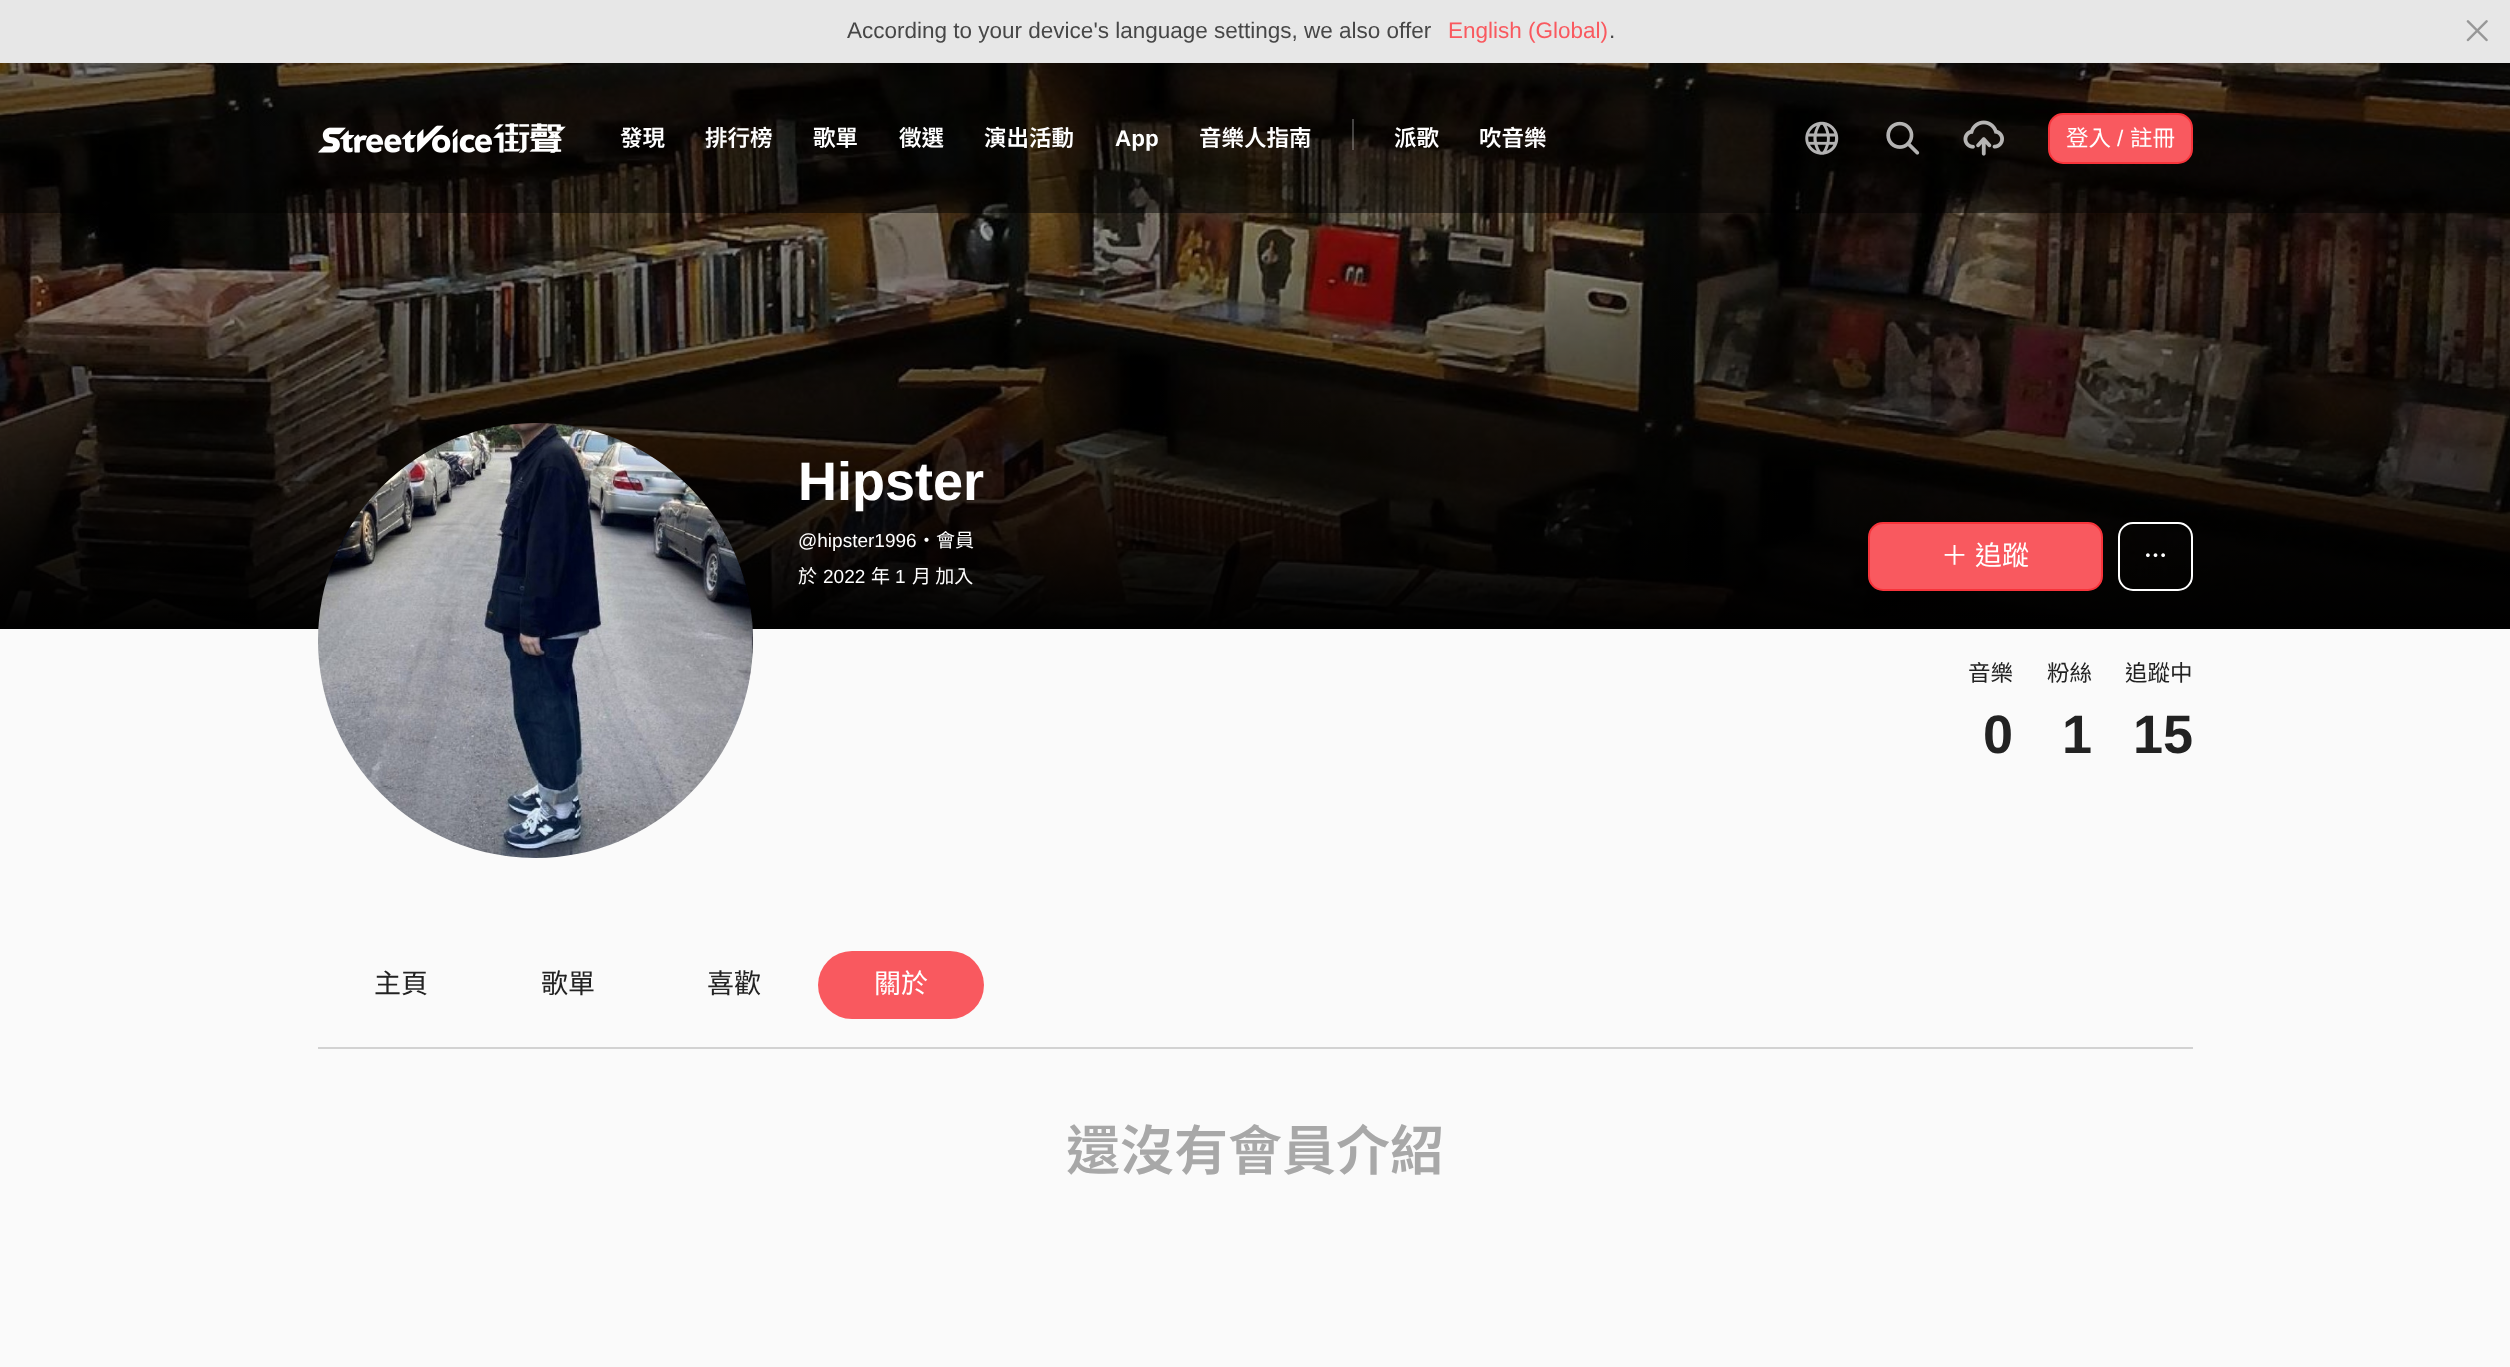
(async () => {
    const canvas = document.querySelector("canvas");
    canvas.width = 2510;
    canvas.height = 1367;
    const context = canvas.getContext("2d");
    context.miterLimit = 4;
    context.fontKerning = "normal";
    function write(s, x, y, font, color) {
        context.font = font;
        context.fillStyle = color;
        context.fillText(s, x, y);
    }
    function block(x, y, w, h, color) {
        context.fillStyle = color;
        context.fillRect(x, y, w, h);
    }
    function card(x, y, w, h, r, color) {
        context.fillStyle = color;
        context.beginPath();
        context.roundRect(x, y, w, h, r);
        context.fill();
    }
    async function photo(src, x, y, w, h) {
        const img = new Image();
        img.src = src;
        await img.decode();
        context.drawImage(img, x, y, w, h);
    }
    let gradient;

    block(0, 0, 2510, 1367, "rgb(250, 250, 250)");
    block(0, 0, 2510, 63, "rgb(231, 231, 231)");
    write("According to your device's language settings, we also offer", 847, 38, "22.5px Liberation Sans", "rgb(71, 71, 71)");
    write("English (Global)", 1448, 38, "22.5px Liberation Sans", "rgb(249, 89, 95)");
    write(".", 1609, 38, "22.5px Liberation Sans", "rgb(71, 71, 71)");
    await photo("media/1.png", 2466, 20, 22, 22);
    await photo("media/6.png", 0, 63, 2510, 563);
    gradient = context.createLinearGradient(1256, 63, 1256, 629);
    gradient.addColorStop(0, "rgba(0, 0, 0, 0)");
    gradient.addColorStop(1, "rgb(0, 0, 0)");
    context.fillStyle = gradient;
    context.fillRect(0, 75, 2510, 554);
    block(0, 63, 2510, 150, "rgba(0, 0, 0, 0.5)");
    await photo("media/2.png", 318, 123, 248, 30);
    write("發現", 620, 146, "600 22.5px Noto Sans TC", "rgb(255, 255, 255)");
    write("排行榜", 705, 146, "600 22.5px Noto Sans TC", "rgb(255, 255, 255)");
    write("歌單", 813, 146, "600 22.5px Noto Sans TC", "rgb(255, 255, 255)");
    write("徵選", 899, 146, "600 22.5px Noto Sans TC", "rgb(255, 255, 255)");
    write("演出活動", 984, 146, "600 22.5px Noto Sans TC", "rgb(255, 255, 255)");
    write("App", 1115, 146, "bold 22.5px Liberation Sans", "rgb(255, 255, 255)");
    write("音樂人指南", 1199, 146, "600 22.5px Noto Sans TC", "rgb(255, 255, 255)");
    block(1352, 119, 2, 31, "rgba(255, 255, 255, 0.25)");
    write("派歌", 1394, 146, "600 22.5px Noto Sans TC", "rgb(255, 255, 255)");
    write("吹音樂", 1479, 146, "600 22.5px Noto Sans TC", "rgb(255, 255, 255)");
    await photo("media/3.png", 1805, 121, 34, 34);
    await photo("media/4.png", 1886, 121, 34, 34);
    await photo("media/5.png", 1963, 120, 41, 36);
    context.fillStyle = "rgb(249, 89, 95)";
    context.beginPath();
    context.roundRect(2049, 114, 143, 49, 14);
    context.fill();
    context.strokeStyle = "rgb(248, 52, 59)";
    context.lineWidth = 2;
    context.stroke();
    write("登入", 2066, 146, "22.5px Noto Sans TC", "rgb(255, 255, 255)");
    write("/", 2117, 146, "22.5px Liberation Sans", "rgb(255, 255, 255)");
    write("註冊", 2130, 146, "22.5px Noto Sans TC", "rgb(255, 255, 255)");
    await photo("media/7.png", 318, 423, 435, 435);
    write("Hipster", 798, 500, "bold 54px Liberation Sans", "rgb(255, 255, 255)");
    write("@hipster1996", 798, 547, "19px Liberation Sans", "rgb(255, 255, 255)");
    write("・會員", 917, 547, "19px Noto Sans TC", "rgb(255, 255, 255)");
    write("於", 798, 583, "19px Noto Sans TC", "rgb(255, 255, 255)");
    write("2022", 823, 583, "19px Liberation Sans", "rgb(255, 255, 255)");
    write("年", 871, 583, "19px Noto Sans TC", "rgb(255, 255, 255)");
    write("1", 895, 583, "19px Liberation Sans", "rgb(255, 255, 255)");
    write("月 加入", 912, 583, "19px Noto Sans TC", "rgb(255, 255, 255)");
    context.fillStyle = "rgb(249, 89, 95)";
    context.beginPath();
    context.roundRect(1869, 523, 233, 67, 14);
    context.fill();
    context.stroke();
    context.wordSpacing = "1px";
    write("＋ 追蹤", 1941, 565, "27px Noto Sans TC", "rgb(255, 255, 255)");
    context.beginPath();
    context.roundRect(2119, 523, 73, 67, 14);
    context.strokeStyle = "rgb(255, 255, 255)";
    context.stroke();
    await photo("media/8.png", 2146, 553, 19, 5);
    context.wordSpacing = "0px";
    write("音樂", 1968, 681, "22.5px Noto Sans TC", "rgb(34, 34, 34)");
    write("0", 1983, 753, "bold 54px Liberation Sans", "rgb(34, 34, 34)");
    write("粉絲", 2047, 681, "22.5px Noto Sans TC", "rgb(34, 34, 34)");
    write("1", 2062, 753, "bold 54px Liberation Sans", "rgb(34, 34, 34)");
    write("追蹤中", 2125, 681, "22.5px Noto Sans TC", "rgb(34, 34, 34)");
    write("15", 2133, 753, "bold 54px Liberation Sans", "rgb(34, 34, 34)");
    write("主頁", 374, 993, "27px Noto Sans TC", "rgb(34, 34, 34)");
    write("歌單", 541, 993, "27px Noto Sans TC", "rgb(34, 34, 34)");
    write("喜歡", 707, 993, "27px Noto Sans TC", "rgb(34, 34, 34)");
    card(818, 951, 166, 68, 34, "rgb(249, 89, 95)");
    write("關於", 874, 993, "27px Noto Sans TC", "rgb(255, 255, 255)");
    block(318, 1047, 1875, 2, "rgb(210, 210, 210)");
    write("還沒有會員介紹", 1066, 1170, "600 54px Noto Sans TC", "rgb(168, 168, 168)");
})();
